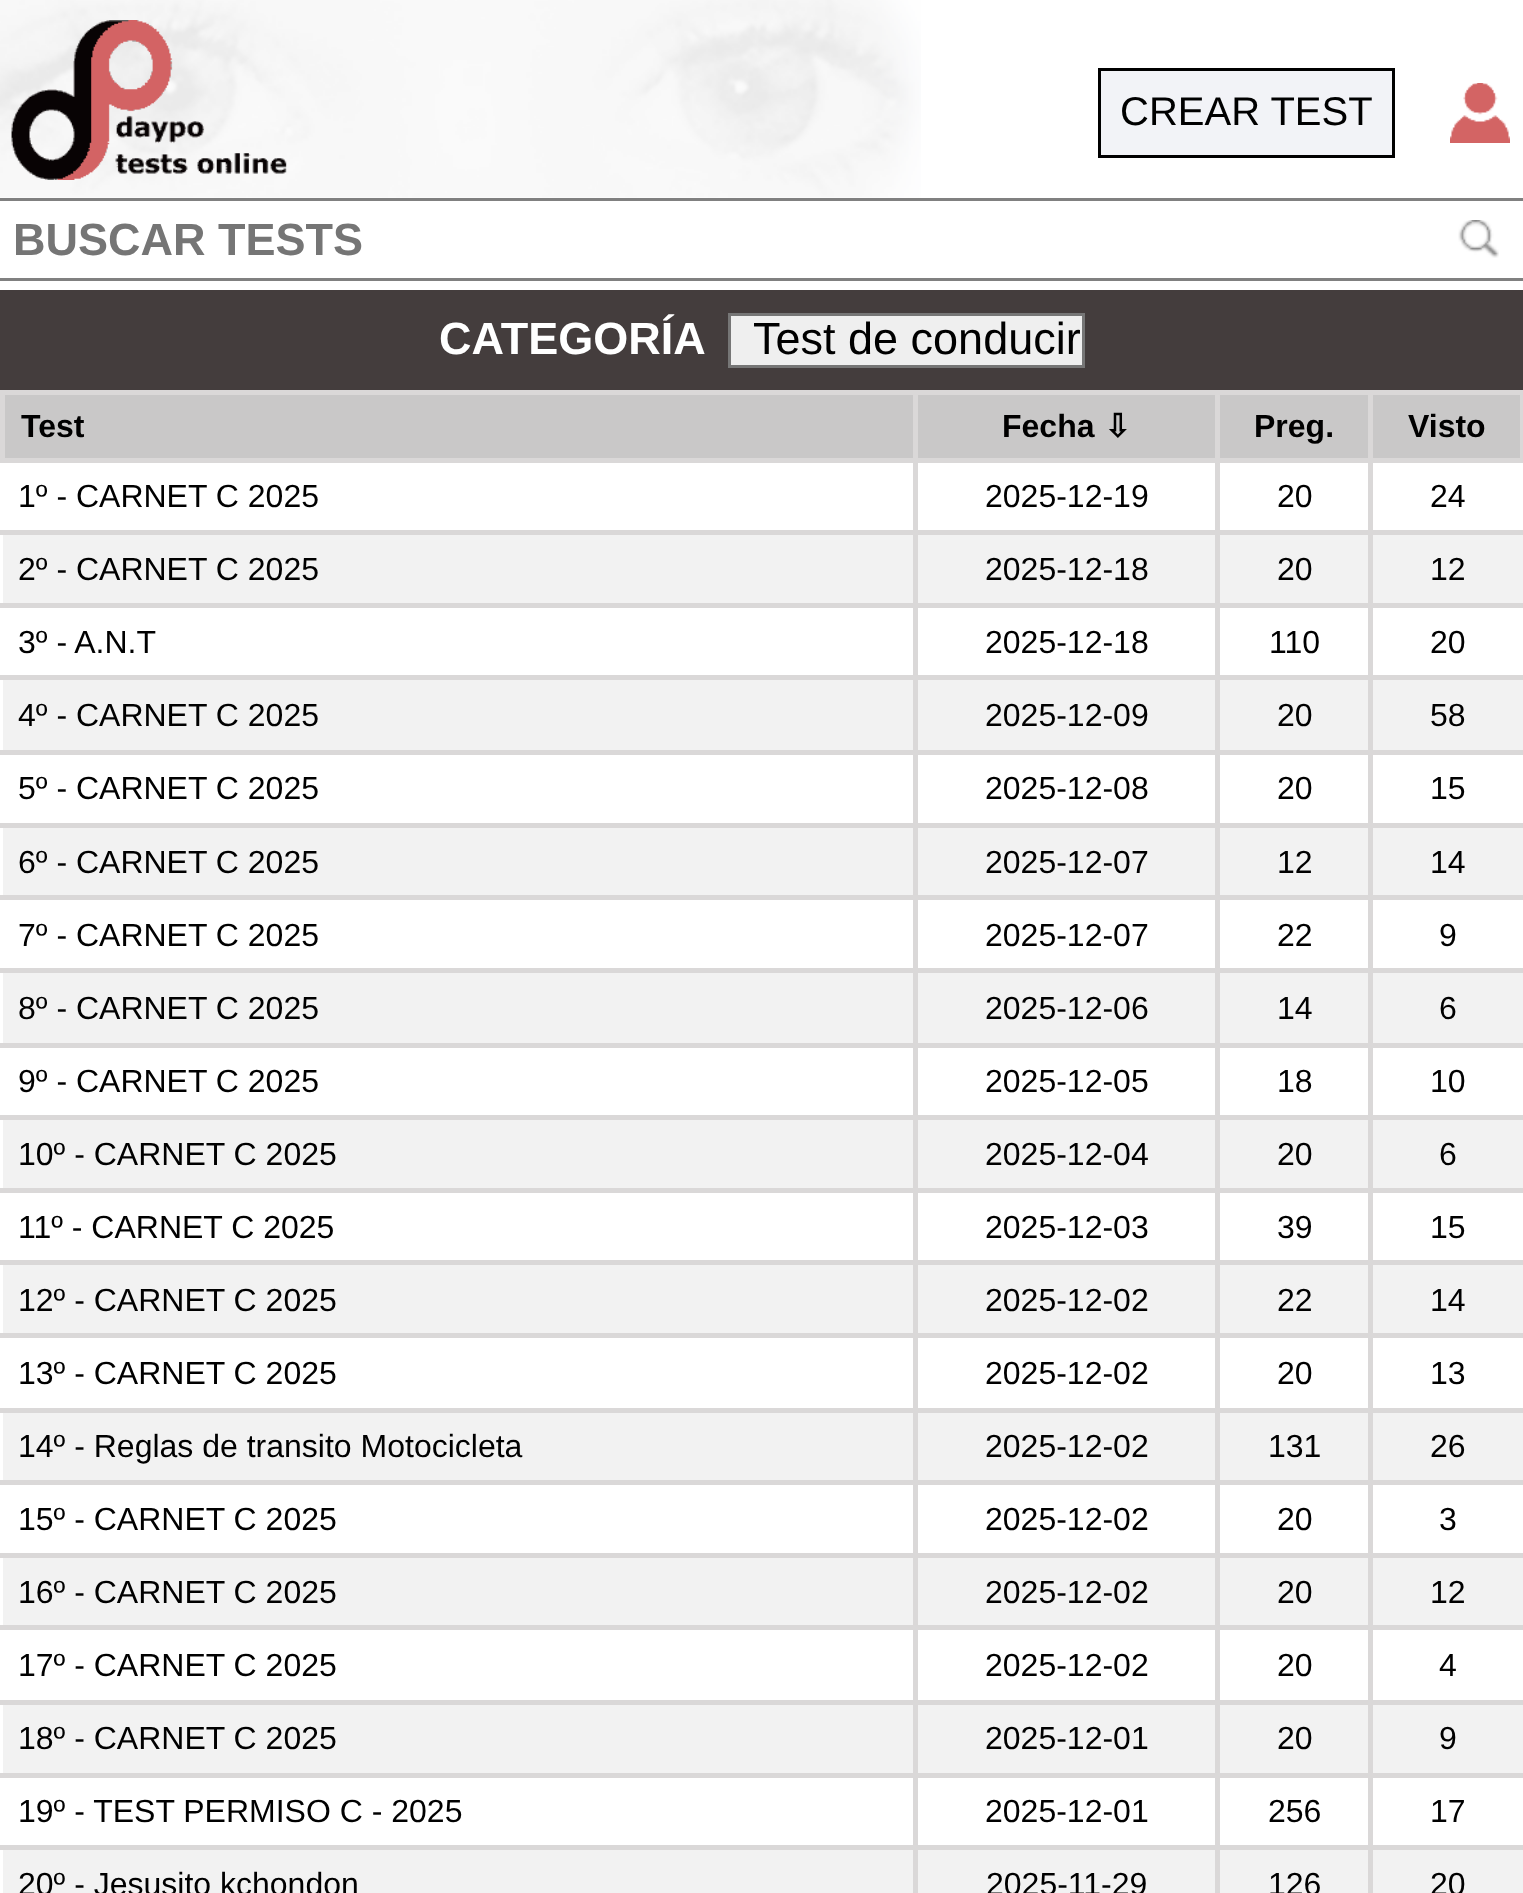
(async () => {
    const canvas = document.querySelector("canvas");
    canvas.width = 1523;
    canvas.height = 1893;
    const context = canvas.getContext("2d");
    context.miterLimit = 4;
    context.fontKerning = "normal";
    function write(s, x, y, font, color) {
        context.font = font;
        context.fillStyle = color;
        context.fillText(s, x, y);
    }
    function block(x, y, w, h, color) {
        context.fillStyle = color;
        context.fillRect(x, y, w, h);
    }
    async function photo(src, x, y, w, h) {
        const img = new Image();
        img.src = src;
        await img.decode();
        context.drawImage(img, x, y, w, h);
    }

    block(0, 0, 1523, 1893, "rgb(255, 255, 255)");
    await photo("media/1.png", 0, 0, 921, 198);
    block(0, 198, 1523, 3, "rgb(128, 128, 128)");
    await photo("media/2.png", 11, 20, 276, 160);
    context.fillStyle = "rgb(242, 243, 247)";
    context.beginPath();
    context.rect(1099.5, 69.5, 294, 87);
    context.fill();
    context.strokeStyle = "rgb(0, 0, 0)";
    context.lineWidth = 3;
    context.stroke();
    write("CREAR TEST", 1120, 125, "40px Liberation Sans", "rgb(0, 0, 0)");
    block(1450, 83, 60, 60, "rgb(211, 100, 100)");
    await photo("media/3.png", 1450, 83, 60, 57);
    block(0, 278, 1523, 3, "rgb(128, 128, 128)");
    write("BUSCAR TESTS", 13, 255, "bold 45px Liberation Sans", "rgb(117, 117, 117)");
    await photo("media/4.png", 1458, 220, 41, 38);
    block(0, 290, 1523, 100, "rgb(68, 61, 61)");
    write("CATEGORÍA", 439, 354, "bold 45px Liberation Sans", "rgb(255, 255, 255)");
    context.fillStyle = "rgb(239, 239, 239)";
    context.beginPath();
    context.rect(729.5, 314.5, 354, 52);
    context.fill();
    context.strokeStyle = "rgb(118, 118, 118)";
    context.stroke();
    write("Test de conducir", 753, 354, "45px Liberation Sans", "rgb(0, 0, 0)");
    block(5, 395, 908, 63, "rgb(201, 200, 200)");
    block(1368, 390, 155, 5, "rgb(218, 216, 216)");
    block(1368, 458, 155, 5, "rgb(218, 216, 216)");
    block(1368, 530, 155, 5, "rgb(218, 216, 216)");
    block(3, 535, 1520, 68, "rgb(242, 242, 242)");
    block(1368, 603, 155, 5, "rgb(218, 216, 216)");
    block(1368, 675, 155, 5, "rgb(218, 216, 216)");
    block(3, 680, 1520, 70, "rgb(242, 242, 242)");
    block(1368, 750, 155, 5, "rgb(218, 216, 216)");
    block(1368, 823, 155, 5, "rgb(218, 216, 216)");
    block(3, 828, 1520, 67, "rgb(242, 242, 242)");
    block(1368, 895, 155, 5, "rgb(218, 216, 216)");
    block(1368, 968, 155, 5, "rgb(218, 216, 216)");
    block(3, 973, 1520, 70, "rgb(242, 242, 242)");
    block(1368, 1043, 155, 5, "rgb(218, 216, 216)");
    block(1368, 1115, 155, 5, "rgb(218, 216, 216)");
    block(3, 1120, 1520, 68, "rgb(242, 242, 242)");
    block(1368, 1188, 155, 5, "rgb(218, 216, 216)");
    block(1368, 1260, 155, 5, "rgb(218, 216, 216)");
    block(3, 1265, 1520, 68, "rgb(242, 242, 242)");
    block(1368, 1333, 155, 5, "rgb(218, 216, 216)");
    block(1368, 1408, 155, 5, "rgb(218, 216, 216)");
    block(3, 1413, 1520, 67, "rgb(242, 242, 242)");
    block(1368, 1480, 155, 5, "rgb(218, 216, 216)");
    block(1368, 1553, 155, 5, "rgb(218, 216, 216)");
    block(3, 1558, 1520, 67, "rgb(242, 242, 242)");
    block(1368, 1625, 155, 5, "rgb(218, 216, 216)");
    block(1368, 1700, 155, 5, "rgb(218, 216, 216)");
    block(3, 1705, 1520, 68, "rgb(242, 242, 242)");
    block(1368, 1773, 155, 5, "rgb(218, 216, 216)");
    block(1368, 1845, 155, 5, "rgb(218, 216, 216)");
    block(3, 1850, 1520, 43, "rgb(242, 242, 242)");
    block(1368, 1845, 5, 48, "rgb(218, 216, 216)");
    block(1215, 1845, 158, 5, "rgb(218, 216, 216)");
    block(1368, 1773, 5, 77, "rgb(218, 216, 216)");
    block(1215, 1773, 158, 5, "rgb(218, 216, 216)");
    block(1368, 1700, 5, 78, "rgb(218, 216, 216)");
    block(1215, 1700, 158, 5, "rgb(218, 216, 216)");
    block(1368, 1625, 5, 80, "rgb(218, 216, 216)");
    block(1215, 1625, 158, 5, "rgb(218, 216, 216)");
    block(1368, 1553, 5, 77, "rgb(218, 216, 216)");
    block(1215, 1553, 158, 5, "rgb(218, 216, 216)");
    block(1368, 1480, 5, 78, "rgb(218, 216, 216)");
    block(1215, 1480, 158, 5, "rgb(218, 216, 216)");
    block(1368, 1408, 5, 77, "rgb(218, 216, 216)");
    block(1215, 1408, 158, 5, "rgb(218, 216, 216)");
    block(1368, 1333, 5, 80, "rgb(218, 216, 216)");
    block(1215, 1333, 158, 5, "rgb(218, 216, 216)");
    block(1368, 1260, 5, 78, "rgb(218, 216, 216)");
    block(1215, 1260, 158, 5, "rgb(218, 216, 216)");
    block(1368, 1188, 5, 77, "rgb(218, 216, 216)");
    block(1215, 1188, 158, 5, "rgb(218, 216, 216)");
    block(1368, 1115, 5, 78, "rgb(218, 216, 216)");
    block(1215, 1115, 158, 5, "rgb(218, 216, 216)");
    block(1368, 1043, 5, 77, "rgb(218, 216, 216)");
    block(1215, 1043, 158, 5, "rgb(218, 216, 216)");
    block(1368, 968, 5, 80, "rgb(218, 216, 216)");
    block(1215, 968, 158, 5, "rgb(218, 216, 216)");
    block(1368, 895, 5, 78, "rgb(218, 216, 216)");
    block(1215, 895, 158, 5, "rgb(218, 216, 216)");
    block(1368, 823, 5, 77, "rgb(218, 216, 216)");
    block(1215, 823, 158, 5, "rgb(218, 216, 216)");
    block(1368, 750, 5, 78, "rgb(218, 216, 216)");
    block(1215, 750, 158, 5, "rgb(218, 216, 216)");
    block(1368, 675, 5, 80, "rgb(218, 216, 216)");
    block(1215, 675, 158, 5, "rgb(218, 216, 216)");
    block(1368, 603, 5, 77, "rgb(218, 216, 216)");
    block(1215, 603, 158, 5, "rgb(218, 216, 216)");
    block(1368, 530, 5, 78, "rgb(218, 216, 216)");
    block(1215, 530, 158, 5, "rgb(218, 216, 216)");
    block(1368, 458, 5, 77, "rgb(218, 216, 216)");
    block(1215, 458, 158, 5, "rgb(218, 216, 216)");
    block(1368, 390, 5, 73, "rgb(218, 216, 216)");
    block(1215, 390, 158, 5, "rgb(218, 216, 216)");
    block(1215, 1845, 5, 48, "rgb(218, 216, 216)");
    block(913, 1845, 307, 5, "rgb(218, 216, 216)");
    block(1215, 1773, 5, 77, "rgb(218, 216, 216)");
    block(913, 1773, 307, 5, "rgb(218, 216, 216)");
    block(1215, 1700, 5, 78, "rgb(218, 216, 216)");
    block(913, 1700, 307, 5, "rgb(218, 216, 216)");
    block(1215, 1625, 5, 80, "rgb(218, 216, 216)");
    block(913, 1625, 307, 5, "rgb(218, 216, 216)");
    block(1215, 1553, 5, 77, "rgb(218, 216, 216)");
    block(913, 1553, 307, 5, "rgb(218, 216, 216)");
    block(1215, 1480, 5, 78, "rgb(218, 216, 216)");
    block(913, 1480, 307, 5, "rgb(218, 216, 216)");
    block(1215, 1408, 5, 77, "rgb(218, 216, 216)");
    block(913, 1408, 307, 5, "rgb(218, 216, 216)");
    block(1215, 1333, 5, 80, "rgb(218, 216, 216)");
    block(913, 1333, 307, 5, "rgb(218, 216, 216)");
    block(1215, 1260, 5, 78, "rgb(218, 216, 216)");
    block(913, 1260, 307, 5, "rgb(218, 216, 216)");
    block(1215, 1188, 5, 77, "rgb(218, 216, 216)");
    block(913, 1188, 307, 5, "rgb(218, 216, 216)");
    block(1215, 1115, 5, 78, "rgb(218, 216, 216)");
    block(913, 1115, 307, 5, "rgb(218, 216, 216)");
    block(1215, 1043, 5, 77, "rgb(218, 216, 216)");
    block(913, 1043, 307, 5, "rgb(218, 216, 216)");
    block(1215, 968, 5, 80, "rgb(218, 216, 216)");
    block(913, 968, 307, 5, "rgb(218, 216, 216)");
    block(1215, 895, 5, 78, "rgb(218, 216, 216)");
    block(913, 895, 307, 5, "rgb(218, 216, 216)");
    block(1215, 823, 5, 77, "rgb(218, 216, 216)");
    block(913, 823, 307, 5, "rgb(218, 216, 216)");
    block(1215, 750, 5, 78, "rgb(218, 216, 216)");
    block(913, 750, 307, 5, "rgb(218, 216, 216)");
    block(1215, 675, 5, 80, "rgb(218, 216, 216)");
    block(913, 675, 307, 5, "rgb(218, 216, 216)");
    block(1215, 603, 5, 77, "rgb(218, 216, 216)");
    block(913, 603, 307, 5, "rgb(218, 216, 216)");
    block(1215, 530, 5, 78, "rgb(218, 216, 216)");
    block(913, 530, 307, 5, "rgb(218, 216, 216)");
    block(1215, 458, 5, 77, "rgb(218, 216, 216)");
    block(913, 458, 307, 5, "rgb(218, 216, 216)");
    block(1215, 390, 5, 73, "rgb(218, 216, 216)");
    block(913, 390, 307, 5, "rgb(218, 216, 216)");
    block(913, 1845, 5, 48, "rgb(218, 216, 216)");
    block(0, 1845, 918, 5, "rgb(218, 216, 216)");
    block(913, 1773, 5, 77, "rgb(218, 216, 216)");
    block(0, 1773, 918, 5, "rgb(218, 216, 216)");
    block(913, 1700, 5, 78, "rgb(218, 216, 216)");
    block(0, 1700, 918, 5, "rgb(218, 216, 216)");
    block(913, 1625, 5, 80, "rgb(218, 216, 216)");
    block(0, 1625, 918, 5, "rgb(218, 216, 216)");
    block(913, 1553, 5, 77, "rgb(218, 216, 216)");
    block(0, 1553, 918, 5, "rgb(218, 216, 216)");
    block(913, 1480, 5, 78, "rgb(218, 216, 216)");
    block(0, 1480, 918, 5, "rgb(218, 216, 216)");
    block(913, 1408, 5, 77, "rgb(218, 216, 216)");
    block(0, 1408, 918, 5, "rgb(218, 216, 216)");
    block(913, 1333, 5, 80, "rgb(218, 216, 216)");
    block(0, 1333, 918, 5, "rgb(218, 216, 216)");
    block(913, 1260, 5, 78, "rgb(218, 216, 216)");
    block(0, 1260, 918, 5, "rgb(218, 216, 216)");
    block(913, 1188, 5, 77, "rgb(218, 216, 216)");
    block(0, 1188, 918, 5, "rgb(218, 216, 216)");
    block(913, 1115, 5, 78, "rgb(218, 216, 216)");
    block(0, 1115, 918, 5, "rgb(218, 216, 216)");
    block(913, 1043, 5, 77, "rgb(218, 216, 216)");
    block(0, 1043, 918, 5, "rgb(218, 216, 216)");
    block(913, 968, 5, 80, "rgb(218, 216, 216)");
    block(0, 968, 918, 5, "rgb(218, 216, 216)");
    block(913, 895, 5, 78, "rgb(218, 216, 216)");
    block(0, 895, 918, 5, "rgb(218, 216, 216)");
    block(913, 823, 5, 77, "rgb(218, 216, 216)");
    block(0, 823, 918, 5, "rgb(218, 216, 216)");
    block(913, 750, 5, 78, "rgb(218, 216, 216)");
    block(0, 750, 918, 5, "rgb(218, 216, 216)");
    block(913, 675, 5, 80, "rgb(218, 216, 216)");
    block(0, 675, 918, 5, "rgb(218, 216, 216)");
    block(913, 603, 5, 77, "rgb(218, 216, 216)");
    block(0, 603, 918, 5, "rgb(218, 216, 216)");
    block(913, 530, 5, 78, "rgb(218, 216, 216)");
    block(0, 530, 918, 5, "rgb(218, 216, 216)");
    block(913, 458, 5, 77, "rgb(218, 216, 216)");
    block(0, 458, 918, 5, "rgb(218, 216, 216)");
    block(913, 390, 5, 73, "rgb(218, 216, 216)");
    block(0, 390, 918, 5, "rgb(218, 216, 216)");
    block(0, 390, 5, 73, "rgb(218, 216, 216)");
    write("Test", 21, 437, "bold 32px Liberation Sans", "rgb(0, 0, 0)");
    block(918, 395, 297, 63, "rgb(201, 200, 200)");
    write("Fecha", 1002, 437, "bold 32px Liberation Sans", "rgb(0, 0, 0)");
    write("⇩", 1104, 437, "bold 32px DejaVu Sans", "rgb(0, 0, 0)");
    block(1220, 395, 148, 63, "rgb(201, 200, 200)");
    write("Preg.", 1254, 437, "bold 32px Liberation Sans", "rgb(0, 0, 0)");
    block(1373, 395, 147, 63, "rgb(201, 200, 200)");
    block(1520, 390, 3, 73, "rgb(218, 216, 216)");
    write("Visto", 1408, 437, "bold 32px Liberation Sans", "rgb(0, 0, 0)");
    write("1º - CARNET C 2025", 18, 507, "32px Liberation Sans", "rgb(0, 0, 0)");
    write("2025-12-19", 985, 507, "32px Liberation Sans", "rgb(0, 0, 0)");
    write("20", 1277, 507, "32px Liberation Sans", "rgb(0, 0, 0)");
    write("24", 1430, 507, "32px Liberation Sans", "rgb(0, 0, 0)");
    write("2º - CARNET C 2025", 18, 580, "32px Liberation Sans", "rgb(0, 0, 0)");
    write("2025-12-18", 985, 580, "32px Liberation Sans", "rgb(0, 0, 0)");
    write("20", 1277, 580, "32px Liberation Sans", "rgb(0, 0, 0)");
    write("12", 1430, 580, "32px Liberation Sans", "rgb(0, 0, 0)");
    write("3º - A.N.T", 18, 653, "32px Liberation Sans", "rgb(0, 0, 0)");
    write("2025-12-18", 985, 653, "32px Liberation Sans", "rgb(0, 0, 0)");
    write("110", 1269, 653, "32px Liberation Sans", "rgb(0, 0, 0)");
    write("20", 1430, 653, "32px Liberation Sans", "rgb(0, 0, 0)");
    write("4º - CARNET C 2025", 18, 726, "32px Liberation Sans", "rgb(0, 0, 0)");
    write("2025-12-09", 985, 726, "32px Liberation Sans", "rgb(0, 0, 0)");
    write("20", 1277, 726, "32px Liberation Sans", "rgb(0, 0, 0)");
    write("58", 1430, 726, "32px Liberation Sans", "rgb(0, 0, 0)");
    write("5º - CARNET C 2025", 18, 799, "32px Liberation Sans", "rgb(0, 0, 0)");
    write("2025-12-08", 985, 799, "32px Liberation Sans", "rgb(0, 0, 0)");
    write("20", 1277, 799, "32px Liberation Sans", "rgb(0, 0, 0)");
    write("15", 1430, 799, "32px Liberation Sans", "rgb(0, 0, 0)");
    write("6º - CARNET C 2025", 18, 873, "32px Liberation Sans", "rgb(0, 0, 0)");
    write("2025-12-07", 985, 873, "32px Liberation Sans", "rgb(0, 0, 0)");
    write("12", 1277, 873, "32px Liberation Sans", "rgb(0, 0, 0)");
    write("14", 1430, 873, "32px Liberation Sans", "rgb(0, 0, 0)");
    write("7º - CARNET C 2025", 18, 946, "32px Liberation Sans", "rgb(0, 0, 0)");
    write("2025-12-07", 985, 946, "32px Liberation Sans", "rgb(0, 0, 0)");
    write("22", 1277, 946, "32px Liberation Sans", "rgb(0, 0, 0)");
    write("9", 1439, 946, "32px Liberation Sans", "rgb(0, 0, 0)");
    write("8º - CARNET C 2025", 18, 1019, "32px Liberation Sans", "rgb(0, 0, 0)");
    write("2025-12-06", 985, 1019, "32px Liberation Sans", "rgb(0, 0, 0)");
    write("14", 1277, 1019, "32px Liberation Sans", "rgb(0, 0, 0)");
    write("6", 1439, 1019, "32px Liberation Sans", "rgb(0, 0, 0)");
    write("9º - CARNET C 2025", 18, 1092, "32px Liberation Sans", "rgb(0, 0, 0)");
    write("2025-12-05", 985, 1092, "32px Liberation Sans", "rgb(0, 0, 0)");
    write("18", 1277, 1092, "32px Liberation Sans", "rgb(0, 0, 0)");
    write("10", 1430, 1092, "32px Liberation Sans", "rgb(0, 0, 0)");
    write("10º - CARNET C 2025", 18, 1165, "32px Liberation Sans", "rgb(0, 0, 0)");
    write("2025-12-04", 985, 1165, "32px Liberation Sans", "rgb(0, 0, 0)");
    write("20", 1277, 1165, "32px Liberation Sans", "rgb(0, 0, 0)");
    write("6", 1439, 1165, "32px Liberation Sans", "rgb(0, 0, 0)");
    write("11º - CARNET C 2025", 18, 1238, "32px Liberation Sans", "rgb(0, 0, 0)");
    write("2025-12-03", 985, 1238, "32px Liberation Sans", "rgb(0, 0, 0)");
    write("39", 1277, 1238, "32px Liberation Sans", "rgb(0, 0, 0)");
    write("15", 1430, 1238, "32px Liberation Sans", "rgb(0, 0, 0)");
    write("12º - CARNET C 2025", 18, 1311, "32px Liberation Sans", "rgb(0, 0, 0)");
    write("2025-12-02", 985, 1311, "32px Liberation Sans", "rgb(0, 0, 0)");
    write("22", 1277, 1311, "32px Liberation Sans", "rgb(0, 0, 0)");
    write("14", 1430, 1311, "32px Liberation Sans", "rgb(0, 0, 0)");
    write("13º - CARNET C 2025", 18, 1384, "32px Liberation Sans", "rgb(0, 0, 0)");
    write("2025-12-02", 985, 1384, "32px Liberation Sans", "rgb(0, 0, 0)");
    write("20", 1277, 1384, "32px Liberation Sans", "rgb(0, 0, 0)");
    write("13", 1430, 1384, "32px Liberation Sans", "rgb(0, 0, 0)");
    write("14º - Reglas de transito Motocicleta", 18, 1457, "32px Liberation Sans", "rgb(0, 0, 0)");
    write("2025-12-02", 985, 1457, "32px Liberation Sans", "rgb(0, 0, 0)");
    write("131", 1268, 1457, "32px Liberation Sans", "rgb(0, 0, 0)");
    write("26", 1430, 1457, "32px Liberation Sans", "rgb(0, 0, 0)");
    write("15º - CARNET C 2025", 18, 1530, "32px Liberation Sans", "rgb(0, 0, 0)");
    write("2025-12-02", 985, 1530, "32px Liberation Sans", "rgb(0, 0, 0)");
    write("20", 1277, 1530, "32px Liberation Sans", "rgb(0, 0, 0)");
    write("3", 1439, 1530, "32px Liberation Sans", "rgb(0, 0, 0)");
    write("16º - CARNET C 2025", 18, 1603, "32px Liberation Sans", "rgb(0, 0, 0)");
    write("2025-12-02", 985, 1603, "32px Liberation Sans", "rgb(0, 0, 0)");
    write("20", 1277, 1603, "32px Liberation Sans", "rgb(0, 0, 0)");
    write("12", 1430, 1603, "32px Liberation Sans", "rgb(0, 0, 0)");
    write("17º - CARNET C 2025", 18, 1676, "32px Liberation Sans", "rgb(0, 0, 0)");
    write("2025-12-02", 985, 1676, "32px Liberation Sans", "rgb(0, 0, 0)");
    write("20", 1277, 1676, "32px Liberation Sans", "rgb(0, 0, 0)");
    write("4", 1439, 1676, "32px Liberation Sans", "rgb(0, 0, 0)");
    write("18º - CARNET C 2025", 18, 1749, "32px Liberation Sans", "rgb(0, 0, 0)");
    write("2025-12-01", 985, 1749, "32px Liberation Sans", "rgb(0, 0, 0)");
    write("20", 1277, 1749, "32px Liberation Sans", "rgb(0, 0, 0)");
    write("9", 1439, 1749, "32px Liberation Sans", "rgb(0, 0, 0)");
    write("19º - TEST PERMISO C - 2025", 18, 1822, "32px Liberation Sans", "rgb(0, 0, 0)");
    write("2025-12-01", 985, 1822, "32px Liberation Sans", "rgb(0, 0, 0)");
    write("256", 1268, 1822, "32px Liberation Sans", "rgb(0, 0, 0)");
    write("17", 1430, 1822, "32px Liberation Sans", "rgb(0, 0, 0)");
    write("20º - Jesusito kchondon", 18, 1895, "32px Liberation Sans", "rgb(0, 0, 0)");
    write("2025-11-29", 986, 1895, "32px Liberation Sans", "rgb(0, 0, 0)");
    write("126", 1268, 1895, "32px Liberation Sans", "rgb(0, 0, 0)");
    write("20", 1430, 1895, "32px Liberation Sans", "rgb(0, 0, 0)");
})();
